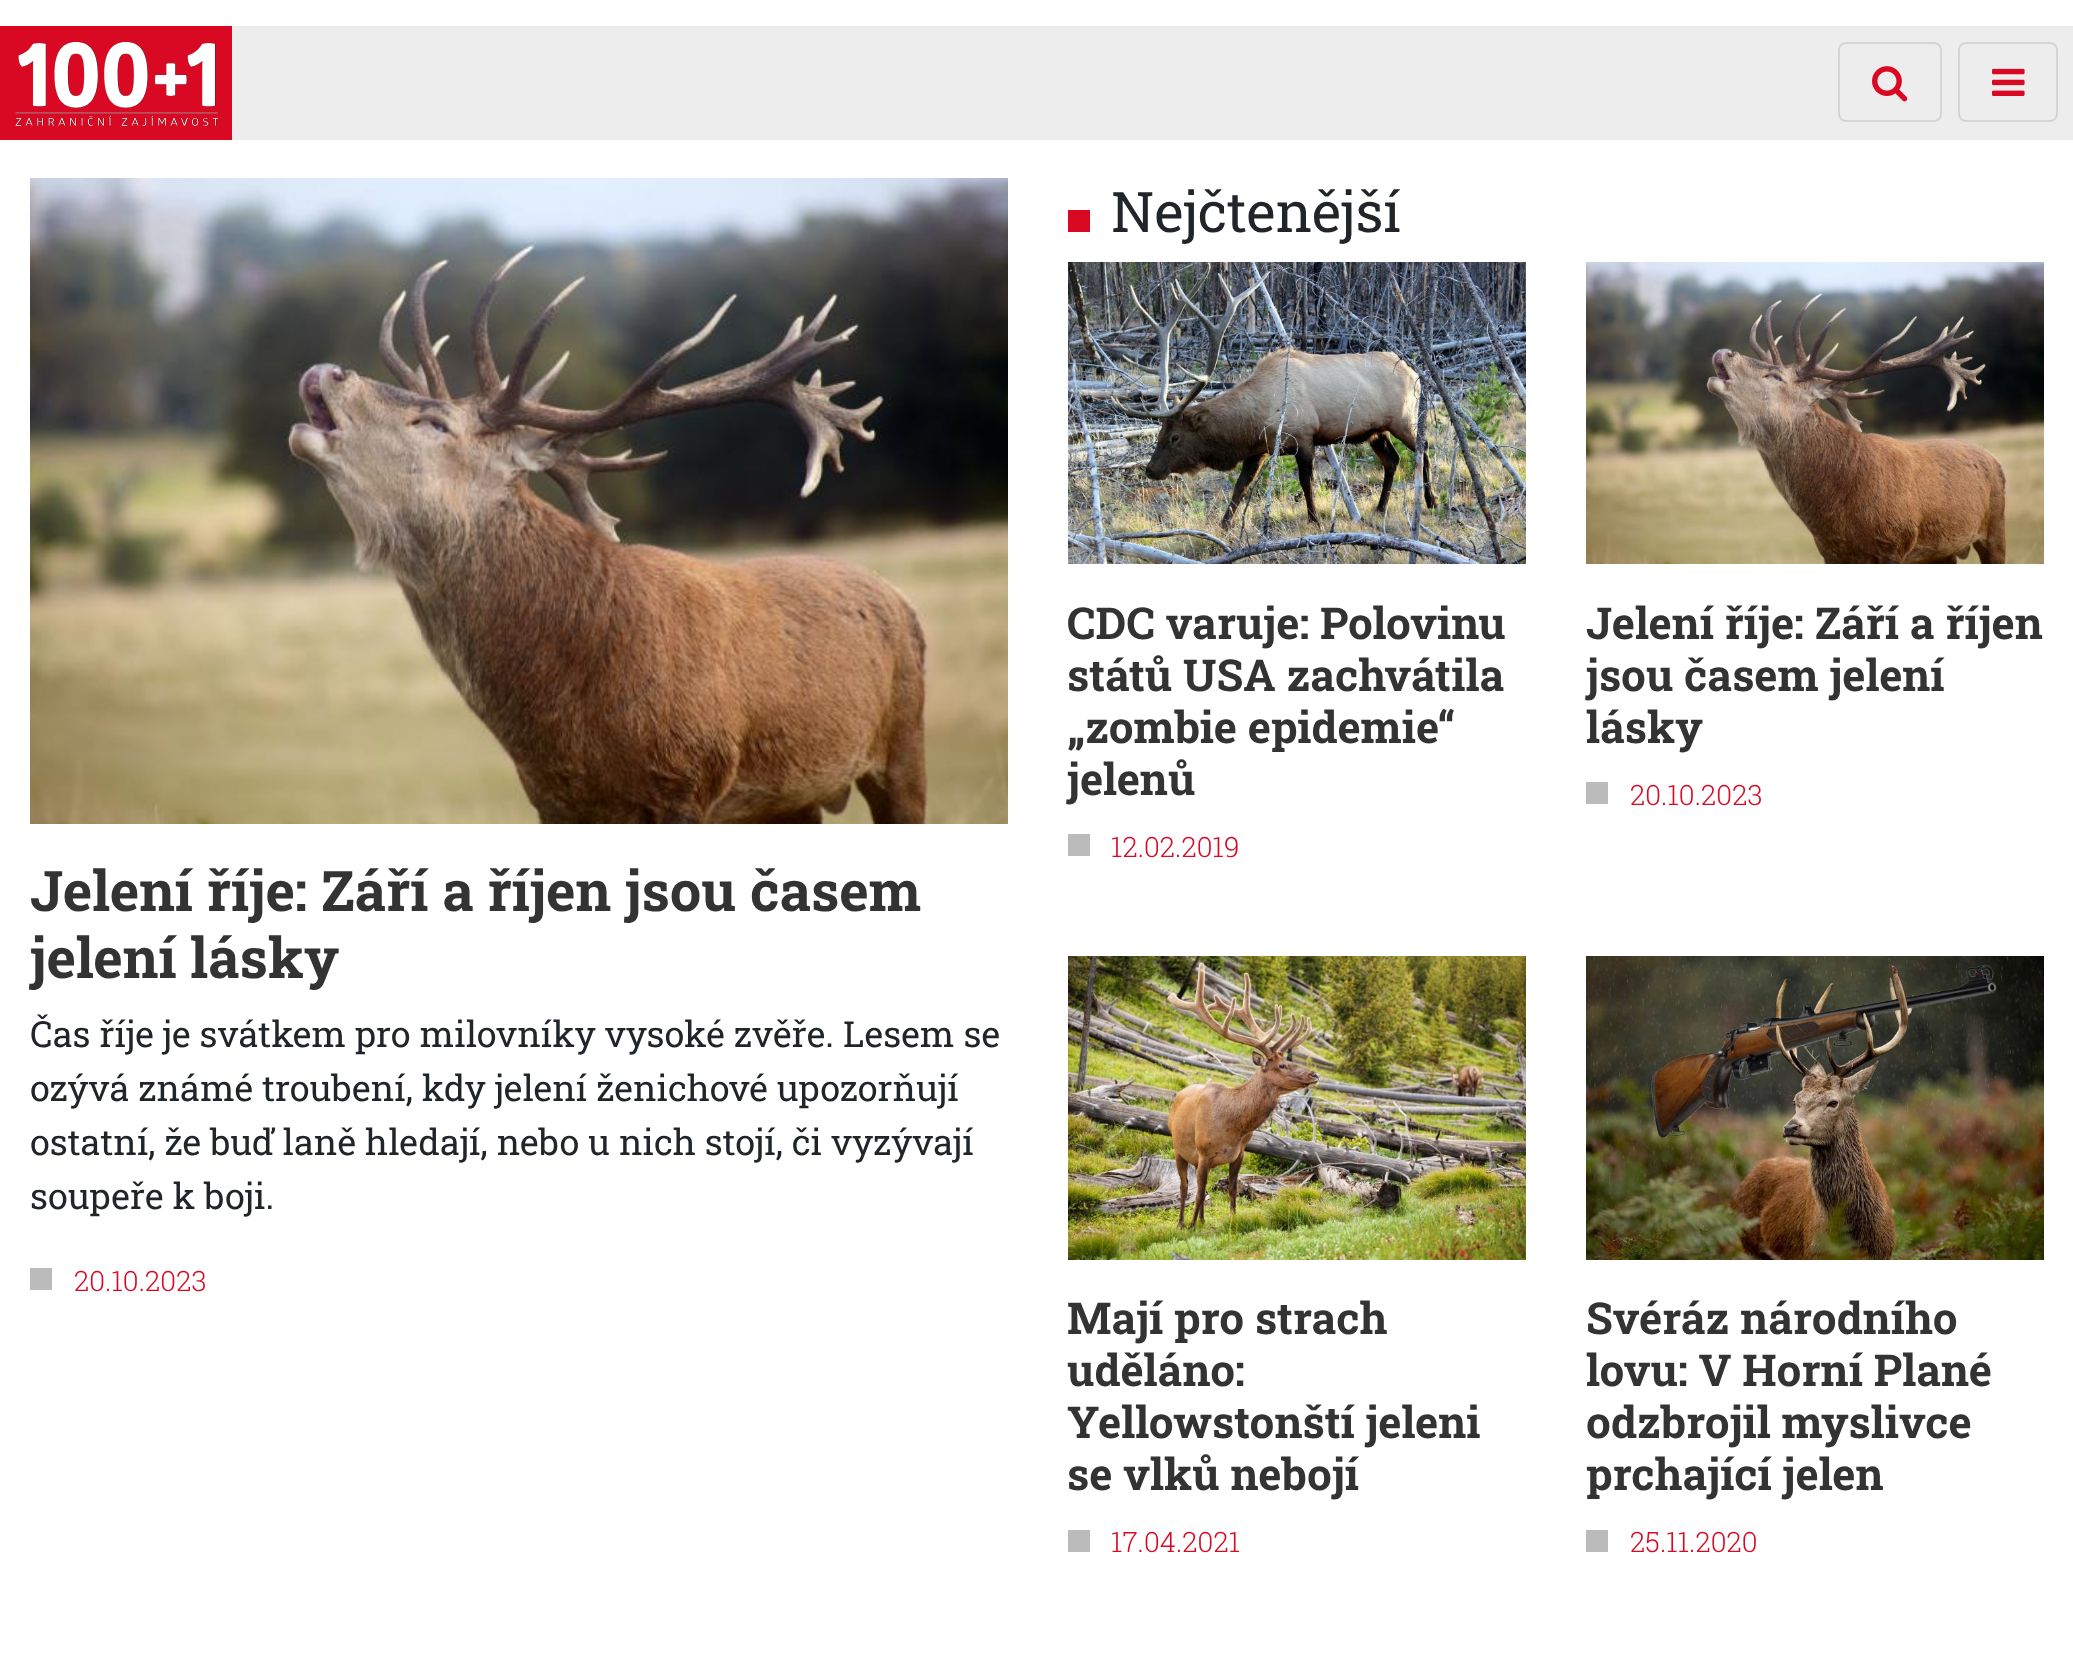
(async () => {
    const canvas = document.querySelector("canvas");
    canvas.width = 2073;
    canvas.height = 1668;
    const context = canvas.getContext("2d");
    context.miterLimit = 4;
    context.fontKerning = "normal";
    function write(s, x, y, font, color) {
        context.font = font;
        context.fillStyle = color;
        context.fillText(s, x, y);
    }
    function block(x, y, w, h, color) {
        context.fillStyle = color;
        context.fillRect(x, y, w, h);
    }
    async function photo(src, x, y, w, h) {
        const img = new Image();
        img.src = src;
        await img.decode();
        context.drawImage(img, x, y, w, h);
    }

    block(0, 0, 2073, 1668, "rgb(255, 255, 255)");
    block(0, 26, 232, 114, "rgb(217, 8, 35)");
    await photo("media/1.png", 15, 42, 204, 84);
    block(232, 26, 1841, 114, "rgb(237, 237, 237)");
    context.beginPath();
    context.roundRect(1839, 43, 102, 78, 7);
    context.strokeStyle = "rgb(213, 213, 213)";
    context.lineWidth = 2;
    context.stroke();
    await photo("media/2.png", 1872, 66, 36, 36);
    context.beginPath();
    context.roundRect(1959, 43, 98, 78, 7);
    context.stroke();
    await photo("media/3.png", 1992, 68, 33, 28);
    await photo("media/4.png", 30, 178, 978, 646);
    write("Jelení říje: Září a říjen jsou časem", 30, 911, "bold 56px Roboto Slab", "rgb(51, 51, 51)");
    write("jelení lásky", 30, 978, "bold 56px Roboto Slab", "rgb(51, 51, 51)");
    write("Čas říje je svátkem pro milovníky vysoké zvěře. Lesem se", 30, 1047, "36px Roboto Slab", "rgb(33, 37, 41)");
    write("ozývá známé troubení, kdy jelení ženichové upozorňují", 30, 1101, "36px Roboto Slab", "rgb(33, 37, 41)");
    write("ostatní, že buď laně hledají, nebo u nich stojí, či vyzývají", 30, 1155, "36px Roboto Slab", "rgb(33, 37, 41)");
    write("soupeře k boji.", 30, 1209, "36px Roboto Slab", "rgb(33, 37, 41)");
    block(30, 1268, 22, 22, "rgb(187, 187, 187)");
    write("20.10.2023", 74, 1291, "300 28px Roboto Slab", "rgb(217, 8, 35)");
    block(1068, 210, 22, 22, "rgb(217, 8, 35)");
    write("Nejčtenější", 1111, 232, "56px Roboto Slab", "rgb(33, 37, 41)");
    await photo("media/5.png", 1068, 262, 458, 302);
    write("CDC varuje: Polovinu", 1067, 639, "bold 44px Roboto Slab", "rgb(51, 51, 51)");
    write("států USA zachvátila", 1067, 691, "bold 44px Roboto Slab", "rgb(51, 51, 51)");
    write("„zombie epidemie“", 1067, 743, "bold 44px Roboto Slab", "rgb(51, 51, 51)");
    write("jelenů", 1067, 795, "bold 44px Roboto Slab", "rgb(51, 51, 51)");
    block(1068, 834, 22, 22, "rgb(187, 187, 187)");
    write("12.02.2019", 1111, 857, "300 28px Roboto Slab", "rgb(217, 8, 35)");
    await photo("media/6.png", 1586, 262, 458, 302);
    write("Jelení říje: Září a říjen", 1586, 639, "bold 44px Roboto Slab", "rgb(51, 51, 51)");
    write("jsou časem jelení", 1586, 691, "bold 44px Roboto Slab", "rgb(51, 51, 51)");
    write("lásky", 1586, 743, "bold 44px Roboto Slab", "rgb(51, 51, 51)");
    block(1586, 782, 22, 22, "rgb(187, 187, 187)");
    write("20.10.2023", 1630, 805, "300 28px Roboto Slab", "rgb(217, 8, 35)");
    await photo("media/7.png", 1068, 956, 458, 304);
    write("Mají pro strach", 1067, 1334, "bold 44px Roboto Slab", "rgb(51, 51, 51)");
    write("uděláno:", 1067, 1386, "bold 44px Roboto Slab", "rgb(51, 51, 51)");
    write("Yellowstonští jeleni", 1067, 1438, "bold 44px Roboto Slab", "rgb(51, 51, 51)");
    write("se vlků nebojí", 1067, 1490, "bold 44px Roboto Slab", "rgb(51, 51, 51)");
    block(1068, 1530, 22, 22, "rgb(187, 187, 187)");
    write("17.04.2021", 1111, 1552, "300 28px Roboto Slab", "rgb(217, 8, 35)");
    await photo("media/8.png", 1586, 956, 458, 304);
    write("Svéráz národního", 1586, 1334, "bold 44px Roboto Slab", "rgb(51, 51, 51)");
    write("lovu: V Horní Plané", 1586, 1386, "bold 44px Roboto Slab", "rgb(51, 51, 51)");
    write("odzbrojil myslivce", 1586, 1438, "bold 44px Roboto Slab", "rgb(51, 51, 51)");
    write("prchající jelen", 1586, 1490, "bold 44px Roboto Slab", "rgb(51, 51, 51)");
    block(1586, 1530, 22, 22, "rgb(187, 187, 187)");
    write("25.11.2020", 1630, 1552, "300 28px Roboto Slab", "rgb(217, 8, 35)");
})();
